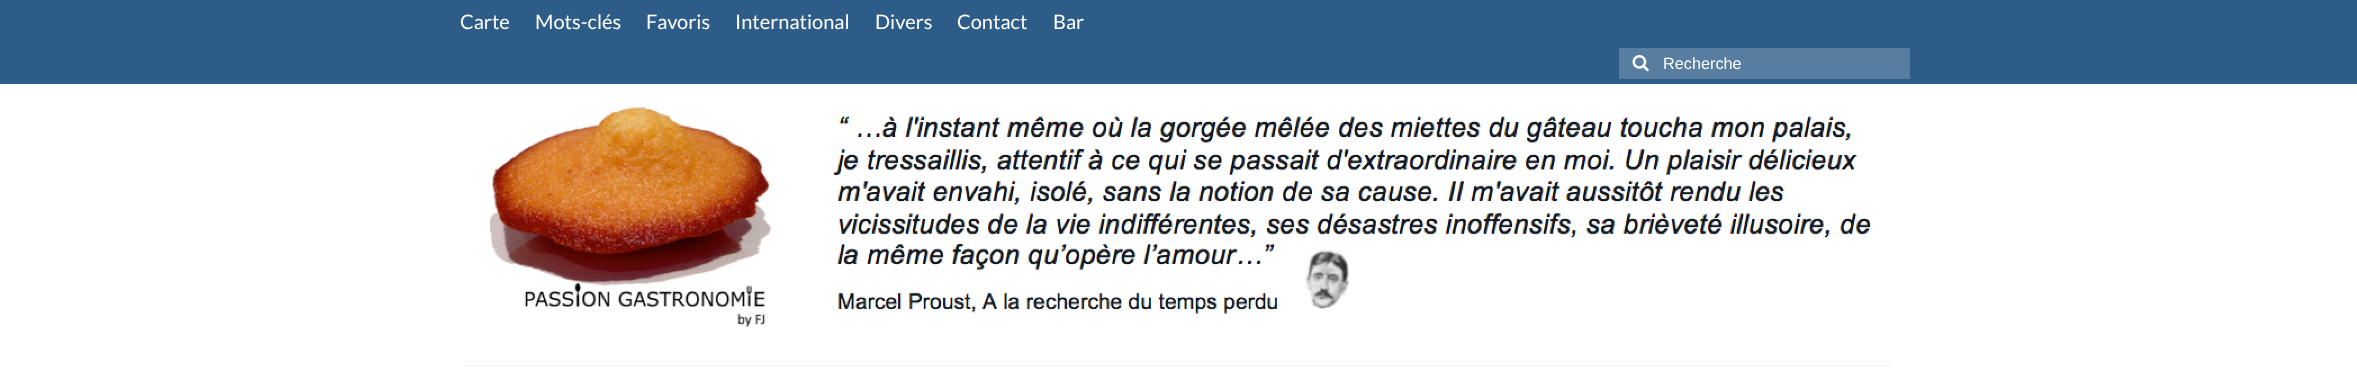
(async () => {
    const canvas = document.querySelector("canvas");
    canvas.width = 2357;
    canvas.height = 370;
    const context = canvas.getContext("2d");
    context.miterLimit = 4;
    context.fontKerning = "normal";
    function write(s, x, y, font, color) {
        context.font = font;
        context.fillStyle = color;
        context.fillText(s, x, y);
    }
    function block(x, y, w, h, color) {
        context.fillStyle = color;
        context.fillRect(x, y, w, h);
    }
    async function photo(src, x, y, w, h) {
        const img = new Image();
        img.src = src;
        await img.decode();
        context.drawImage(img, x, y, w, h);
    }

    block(0, 0, 2357, 370, "rgb(255, 255, 255)");
    block(0, 0, 2357, 84, "rgb(45, 92, 136)");
    write("Carte", 460, 29, "20px Lato", "rgb(255, 255, 255)");
    write("Mots-clés", 535, 29, "20px Lato", "rgb(255, 255, 255)");
    write("Favoris", 646, 29, "20px Lato", "rgb(255, 255, 255)");
    write("International", 735, 29, "20px Lato", "rgb(255, 255, 255)");
    write("Divers", 875, 29, "20px Lato", "rgb(255, 255, 255)");
    write("Contact", 957, 29, "20px Lato", "rgb(255, 255, 255)");
    write("Bar", 1053, 29, "20px Lato", "rgb(255, 255, 255)");
    block(1619, 48, 291, 31, "rgb(87, 125, 160)");
    await photo("media/1.png", 1632, 55, 17, 17);
    write("Recherche", 1663, 69, "16.25px Liberation Sans", "rgb(255, 255, 255)");
    await photo("media/2.png", 490, 106, 1381, 221);
    block(466, 365, 1425, 1, "rgb(242, 242, 242)");
})();
